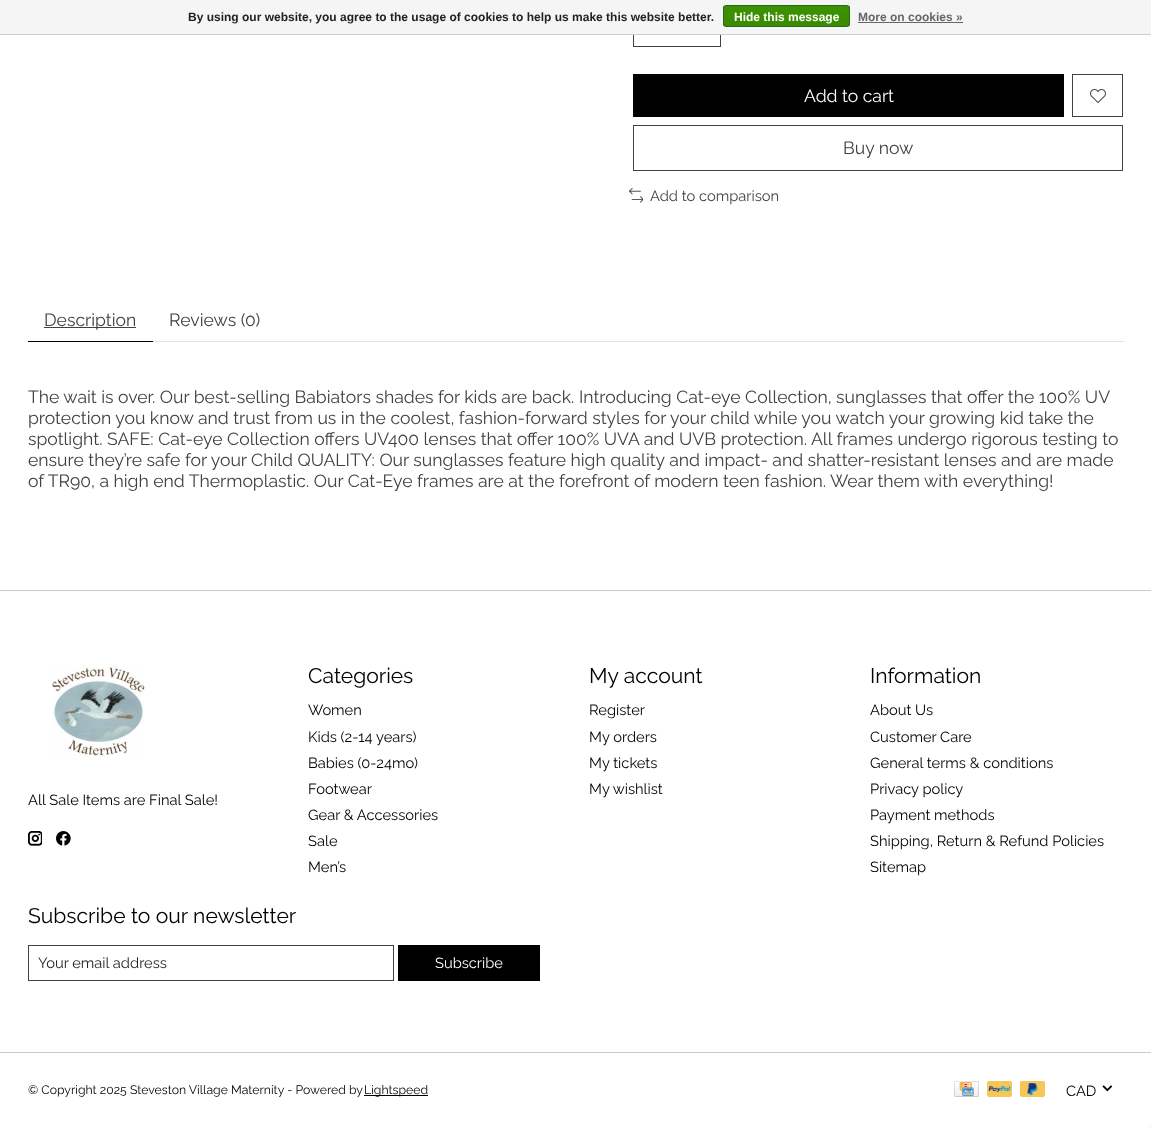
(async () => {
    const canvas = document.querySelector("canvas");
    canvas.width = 1151;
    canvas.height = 1127;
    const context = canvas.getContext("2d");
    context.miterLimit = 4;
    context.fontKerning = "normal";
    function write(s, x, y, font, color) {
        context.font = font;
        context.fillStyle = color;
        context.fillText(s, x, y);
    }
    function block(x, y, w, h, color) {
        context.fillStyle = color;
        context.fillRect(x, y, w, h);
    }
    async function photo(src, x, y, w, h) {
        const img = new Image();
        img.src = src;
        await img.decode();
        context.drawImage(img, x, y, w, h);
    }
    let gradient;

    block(0, 0, 1151, 1127, "rgb(255, 255, 255)");
    context.strokeStyle = "rgb(65, 65, 65)";
    context.strokeRect(633.5, 7.5, 87, 39);
    block(0, 0, 1151, 34, "rgb(245, 245, 245)");
    block(0, 34, 1151, 1, "rgb(204, 204, 204)");
    write("By using our website, you agree to the usage of cookies to help us make this website better.", 188, 21, "bold 12px Liberation Sans", "rgb(34, 34, 34)");
    context.save();
    context.beginPath();
    context.roundRect(723, 5, 127, 22, 3);
    context.clip();
    gradient = context.createLinearGradient(787, 6, 787, 26);
    gradient.addColorStop(0, "rgb(60, 147, 0)");
    gradient.addColorStop(1, "rgb(57, 138, 0)");
    context.fillStyle = gradient;
    context.fillRect(723, 6, 127, 20);
    context.restore();
    context.beginPath();
    context.roundRect(723.5, 5.5, 126, 21, 2.5);
    context.strokeStyle = "rgb(41, 105, 29)";
    context.stroke();
    write("Hide this message", 734, 21, "bold 12px Liberation Sans", "rgb(255, 255, 255)");
    write("More on cookies »", 858, 21, "bold 12px Liberation Sans", "rgb(102, 102, 102)");
    block(858, 22, 105, 1, "rgb(102, 102, 102)");
    block(633, 74, 431, 43, "rgb(0, 0, 0)");
    write("Add to cart", 804, 102, "17.6px Raleway", "rgb(255, 255, 255)");
    context.strokeStyle = "rgb(65, 65, 65)";
    context.strokeRect(1072.5, 74.5, 50, 42);
    await photo("media/1.png", 1090, 89, 16, 14);
    context.strokeRect(633.5, 125.5, 489, 45);
    write("Buy now", 843, 154, "17.6px Raleway", "rgb(65, 65, 65)");
    await photo("media/2.png", 629, 188, 14, 15);
    write("Add to comparison", 650, 201, "14.7px Raleway", "rgb(65, 65, 65)");
    block(28, 341, 125, 1, "rgb(0, 0, 0)");
    block(44, 327, 92, 1, "rgb(65, 65, 65)");
    write("Description", 44, 326, "17.6px Raleway", "rgb(65, 65, 65)");
    write("Reviews (0)", 169, 326, "17.6px Raleway", "rgb(65, 65, 65)");
    block(153, 341, 971, 1, "rgb(227, 227, 227)");
    write("The wait is over. Our best-selling Babiators shades for kids are back. Introducing Cat-eye Collection, sunglasses that offer the 100% UV", 28, 403, "17.6px Raleway", "rgb(65, 65, 65)");
    write("protection you know and trust from us in the coolest, fashion-forward styles for your child while you watch your growing kid take the", 28, 424, "17.6px Raleway", "rgb(65, 65, 65)");
    write("spotlight. SAFE: Cat-eye Collection offers UV400 lenses that offer 100% UVA and UVB protection. All frames undergo rigorous testing to", 28, 445, "17.6px Raleway", "rgb(65, 65, 65)");
    write("ensure they’re safe for your Child QUALITY: Our sunglasses feature high quality and impact- and shatter-resistant lenses and are made", 28, 466, "17.6px Raleway", "rgb(65, 65, 65)");
    write("of TR90, a high end Thermoplastic. Our Cat-Eye frames are at the forefront of modern teen fashion. Wear them with everything!", 28, 487, "17.6px Raleway", "rgb(65, 65, 65)");
    block(0, 590, 1151, 1, "rgb(204, 204, 204)");
    write("Categories", 308, 683, "21.1px Raleway", "rgb(0, 0, 0)");
    write("Women", 308, 715, "14.7px Raleway", "rgb(0, 0, 0)");
    write("Kids (2-14 years)", 308, 742, "14.7px Raleway", "rgb(0, 0, 0)");
    write("Babies (0-24mo)", 308, 768, "14.7px Raleway", "rgb(0, 0, 0)");
    write("Footwear", 308, 794, "14.7px Raleway", "rgb(0, 0, 0)");
    write("Gear & Accessories", 308, 820, "14.7px Raleway", "rgb(0, 0, 0)");
    write("Sale", 308, 846, "14.7px Raleway", "rgb(0, 0, 0)");
    write("Men’s", 308, 872, "14.7px Raleway", "rgb(0, 0, 0)");
    write("My account", 589, 683, "21.1px Raleway", "rgb(0, 0, 0)");
    write("Register", 589, 715, "14.7px Raleway", "rgb(0, 0, 0)");
    write("My orders", 589, 742, "14.7px Raleway", "rgb(0, 0, 0)");
    write("My tickets", 589, 768, "14.7px Raleway", "rgb(0, 0, 0)");
    write("My wishlist", 589, 794, "14.7px Raleway", "rgb(0, 0, 0)");
    write("Information", 870, 683, "21.1px Raleway", "rgb(0, 0, 0)");
    write("About Us", 870, 715, "14.7px Raleway", "rgb(0, 0, 0)");
    write("Customer Care", 870, 742, "14.7px Raleway", "rgb(0, 0, 0)");
    write("General terms & conditions", 870, 768, "14.7px Raleway", "rgb(0, 0, 0)");
    write("Privacy policy", 870, 794, "14.7px Raleway", "rgb(0, 0, 0)");
    write("Payment methods", 870, 820, "14.7px Raleway", "rgb(0, 0, 0)");
    write("Shipping, Return & Refund Policies", 870, 846, "14.7px Raleway", "rgb(0, 0, 0)");
    write("Sitemap", 870, 872, "14.7px Raleway", "rgb(0, 0, 0)");
    await photo("media/3.png", 52, 667, 93, 90);
    write("All Sale Items are Final Sale!", 28, 805, "14.7px Raleway", "rgb(0, 0, 0)");
    await photo("media/4.png", 28, 831, 14, 15);
    await photo("media/5.png", 56, 831, 15, 15);
    write("Subscribe to our newsletter", 28, 923, "21.1px Raleway", "rgb(0, 0, 0)");
    context.strokeRect(28.5, 945.5, 365, 35);
    write("Your email address", 38, 968, "14.7px Raleway", "rgb(28, 28, 33)");
    block(398, 945, 142, 36, "rgb(0, 0, 0)");
    write("Subscribe", 435, 968, "14.7px Raleway", "rgb(255, 255, 255)");
    block(0, 1052, 1151, 1, "rgb(204, 204, 204)");
    write("© Copyright 2025 Steveston Village Maternity - Powered by", 28, 1094, "12.25px Raleway", "rgb(0, 0, 0)");
    block(364, 1095, 64, 1, "rgb(0, 0, 0)");
    write("Lightspeed", 364, 1094, "12.25px Raleway", "rgb(0, 0, 0)");
    await photo("media/6.png", 954, 1081, 25, 16);
    await photo("media/7.png", 987, 1081, 25, 16);
    await photo("media/8.png", 1020, 1081, 25, 16);
    write("CAD", 1066, 1096, "14.7px Raleway", "rgb(0, 0, 0)");
    await photo("media/9.png", 1102, 1085, 11, 7);
    block(1149, 1125, 2, 2, "rgb(245, 245, 245)");
})();
